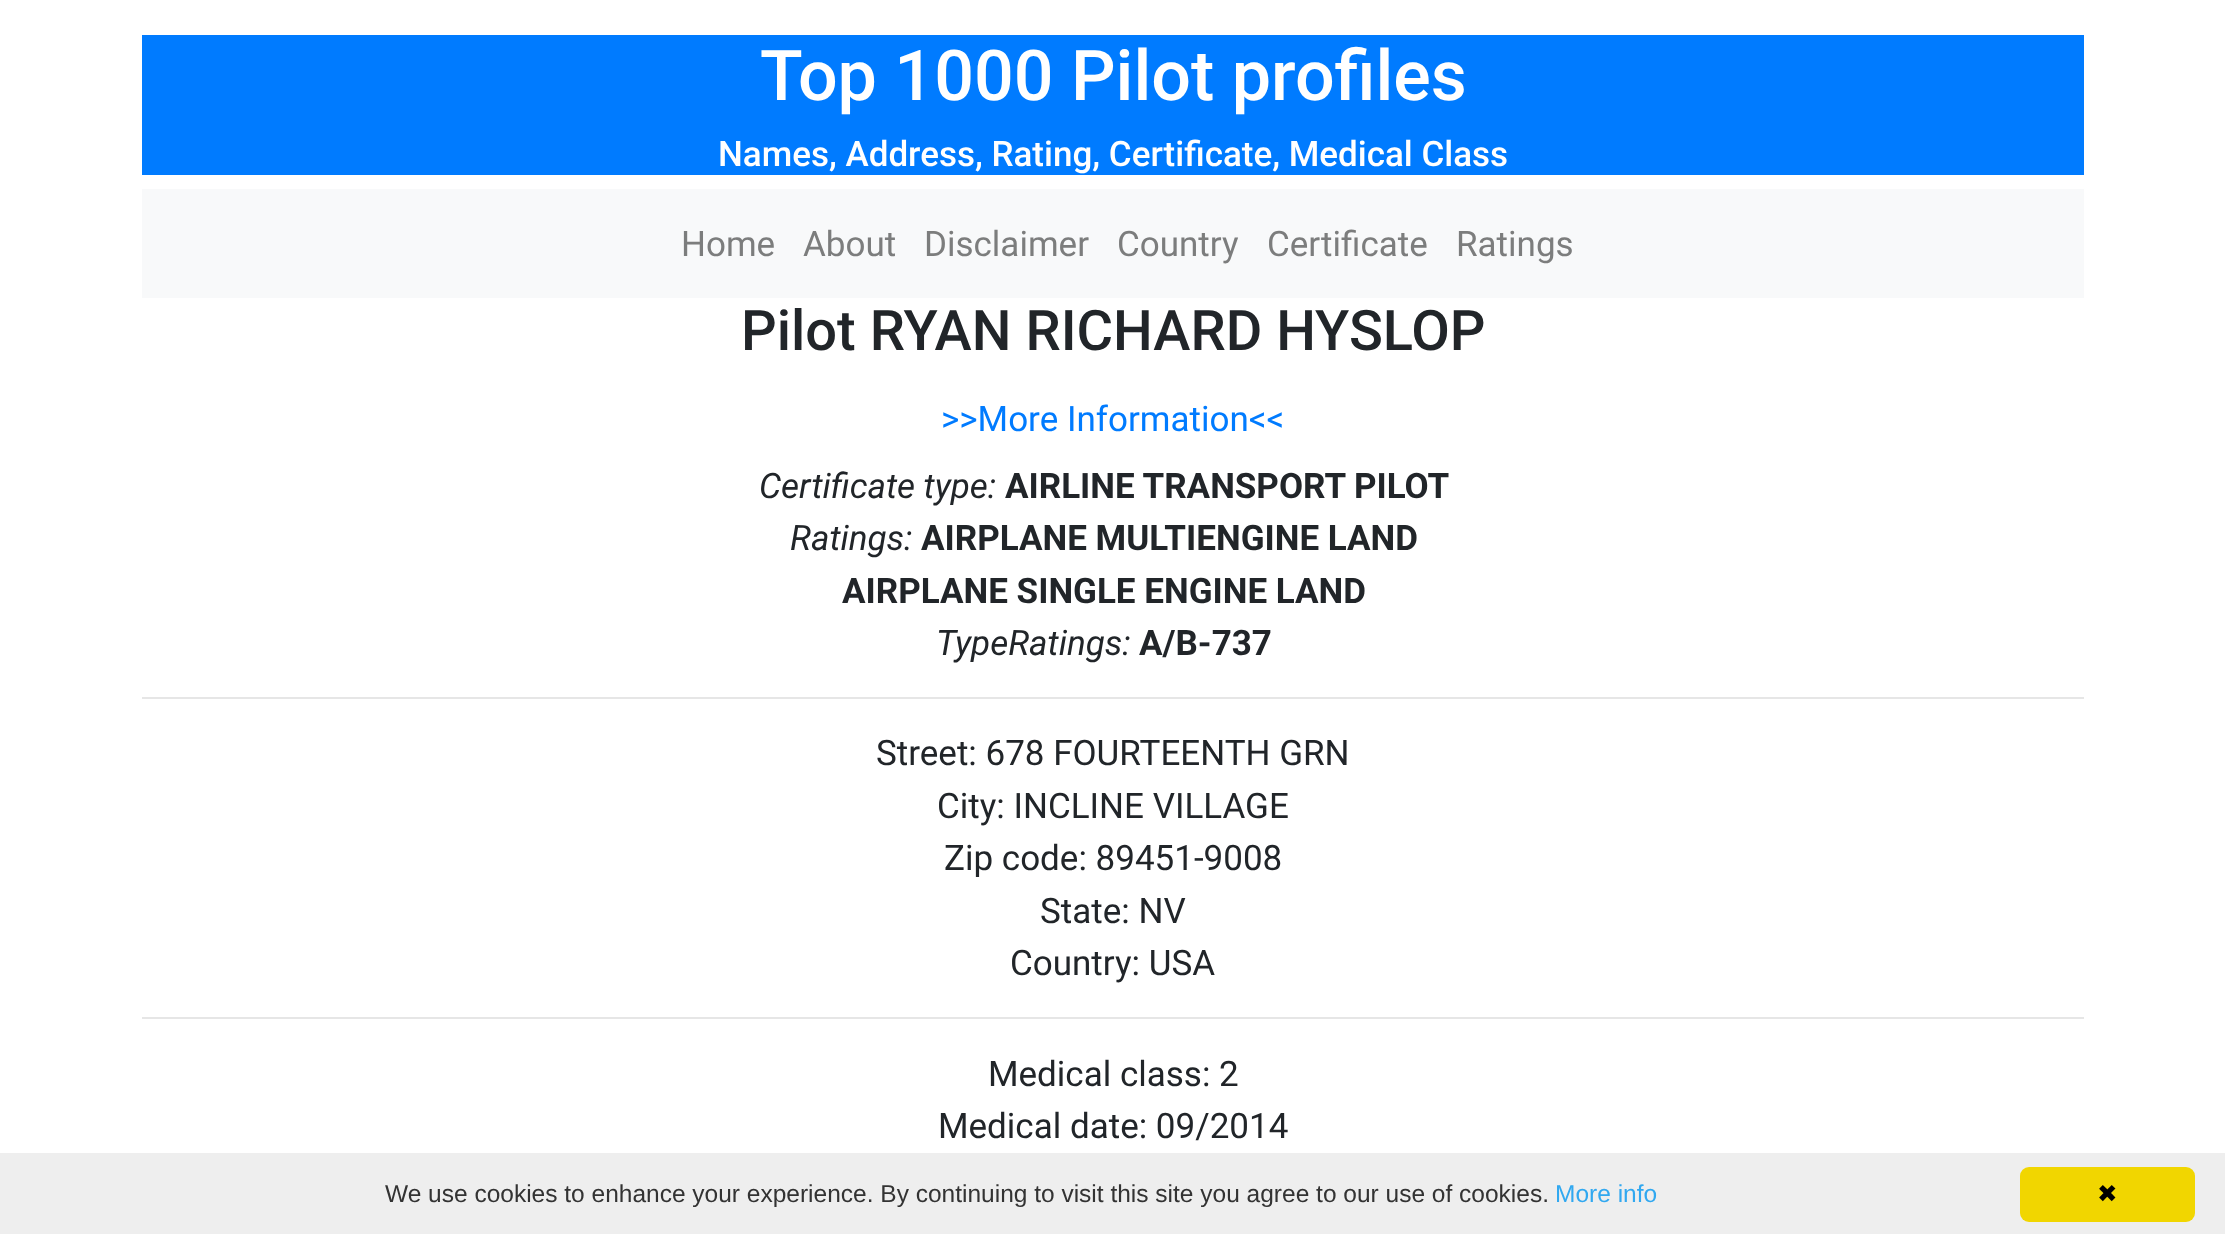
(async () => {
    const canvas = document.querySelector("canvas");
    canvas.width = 2225;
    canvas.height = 1234;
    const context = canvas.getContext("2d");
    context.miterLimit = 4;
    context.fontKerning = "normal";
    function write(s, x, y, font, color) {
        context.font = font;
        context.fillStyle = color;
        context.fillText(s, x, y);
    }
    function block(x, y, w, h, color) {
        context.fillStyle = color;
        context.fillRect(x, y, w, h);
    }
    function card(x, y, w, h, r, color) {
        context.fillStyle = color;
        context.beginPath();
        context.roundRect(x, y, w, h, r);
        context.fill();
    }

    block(0, 0, 2225, 1234, "rgb(255, 255, 255)");
    block(142, 35, 1942, 140, "rgb(0, 123, 255)");
    write("Top 1000 Pilot profiles", 760, 100, "500 70px Roboto", "rgb(255, 255, 255)");
    write("Names, Address, Rating, Certificate, Medical Class", 718, 166, "500 35px Roboto", "rgb(255, 255, 255)");
    block(142, 189, 1942, 109, "rgb(248, 249, 250)");
    write("Home", 681, 256, "35px Roboto", "rgb(124, 125, 125)");
    write("About", 803, 256, "35px Roboto", "rgb(124, 125, 125)");
    write("Disclaimer", 924, 256, "35px Roboto", "rgb(124, 125, 125)");
    write("Country", 1117, 256, "35px Roboto", "rgb(124, 125, 125)");
    write("Certificate", 1267, 256, "35px Roboto", "rgb(124, 125, 125)");
    write("Ratings", 1456, 256, "35px Roboto", "rgb(124, 125, 125)");
    write("Pilot RYAN RICHARD HYSLOP", 741, 350, "500 56px Roboto", "rgb(33, 37, 41)");
    write(">>More Information<<", 941, 431, "35px Roboto", "rgb(0, 123, 255)");
    write("Certificate type:", 759, 498, "italic 35px Roboto", "rgb(33, 37, 41)");
    write("AIRLINE TRANSPORT PILOT", 1005, 498, "bold 35px Roboto", "rgb(33, 37, 41)");
    write("Ratings:", 790, 550, "italic 35px Roboto", "rgb(33, 37, 41)");
    write("AIRPLANE MULTIENGINE LAND", 921, 550, "bold 35px Roboto", "rgb(33, 37, 41)");
    write("AIRPLANE SINGLE ENGINE LAND", 842, 603, "bold 35px Roboto", "rgb(33, 37, 41)");
    write("TypeRatings:", 936, 655, "italic 35px Roboto", "rgb(33, 37, 41)");
    write("A/B-737", 1139, 655, "bold 35px Roboto", "rgb(33, 37, 41)");
    block(142, 697, 1942, 2, "rgb(230, 230, 230)");
    write("Street: 678 FOURTEENTH GRN", 876, 765, "35px Roboto", "rgb(33, 37, 41)");
    write("City: INCLINE VILLAGE", 937, 818, "35px Roboto", "rgb(33, 37, 41)");
    write("Zip code: 89451-9008", 944, 870, "35px Roboto", "rgb(33, 37, 41)");
    write("State: NV", 1040, 923, "35px Roboto", "rgb(33, 37, 41)");
    write("Country: USA", 1010, 975, "35px Roboto", "rgb(33, 37, 41)");
    block(142, 1017, 1942, 2, "rgb(230, 230, 230)");
    write("Medical class: 2", 988, 1086, "35px Roboto", "rgb(33, 37, 41)");
    write("Medical date: 09/2014", 938, 1138, "35px Roboto", "rgb(33, 37, 41)");
    block(0, 1153, 2225, 81, "rgb(238, 238, 238)");
    write("We use cookies to enhance your experience. By continuing to visit this site you agree to our use of cookies.", 385, 1202, "24.5px Liberation Sans", "rgb(51, 51, 51)");
    write("More info", 1555, 1202, "24.5px Liberation Sans", "rgb(49, 168, 240)");
    card(2020, 1167, 175, 55, 9, "rgb(241, 214, 0)");
    write("✖", 2097, 1202, "24.5px DejaVu Sans", "rgb(0, 0, 0)");
})();
